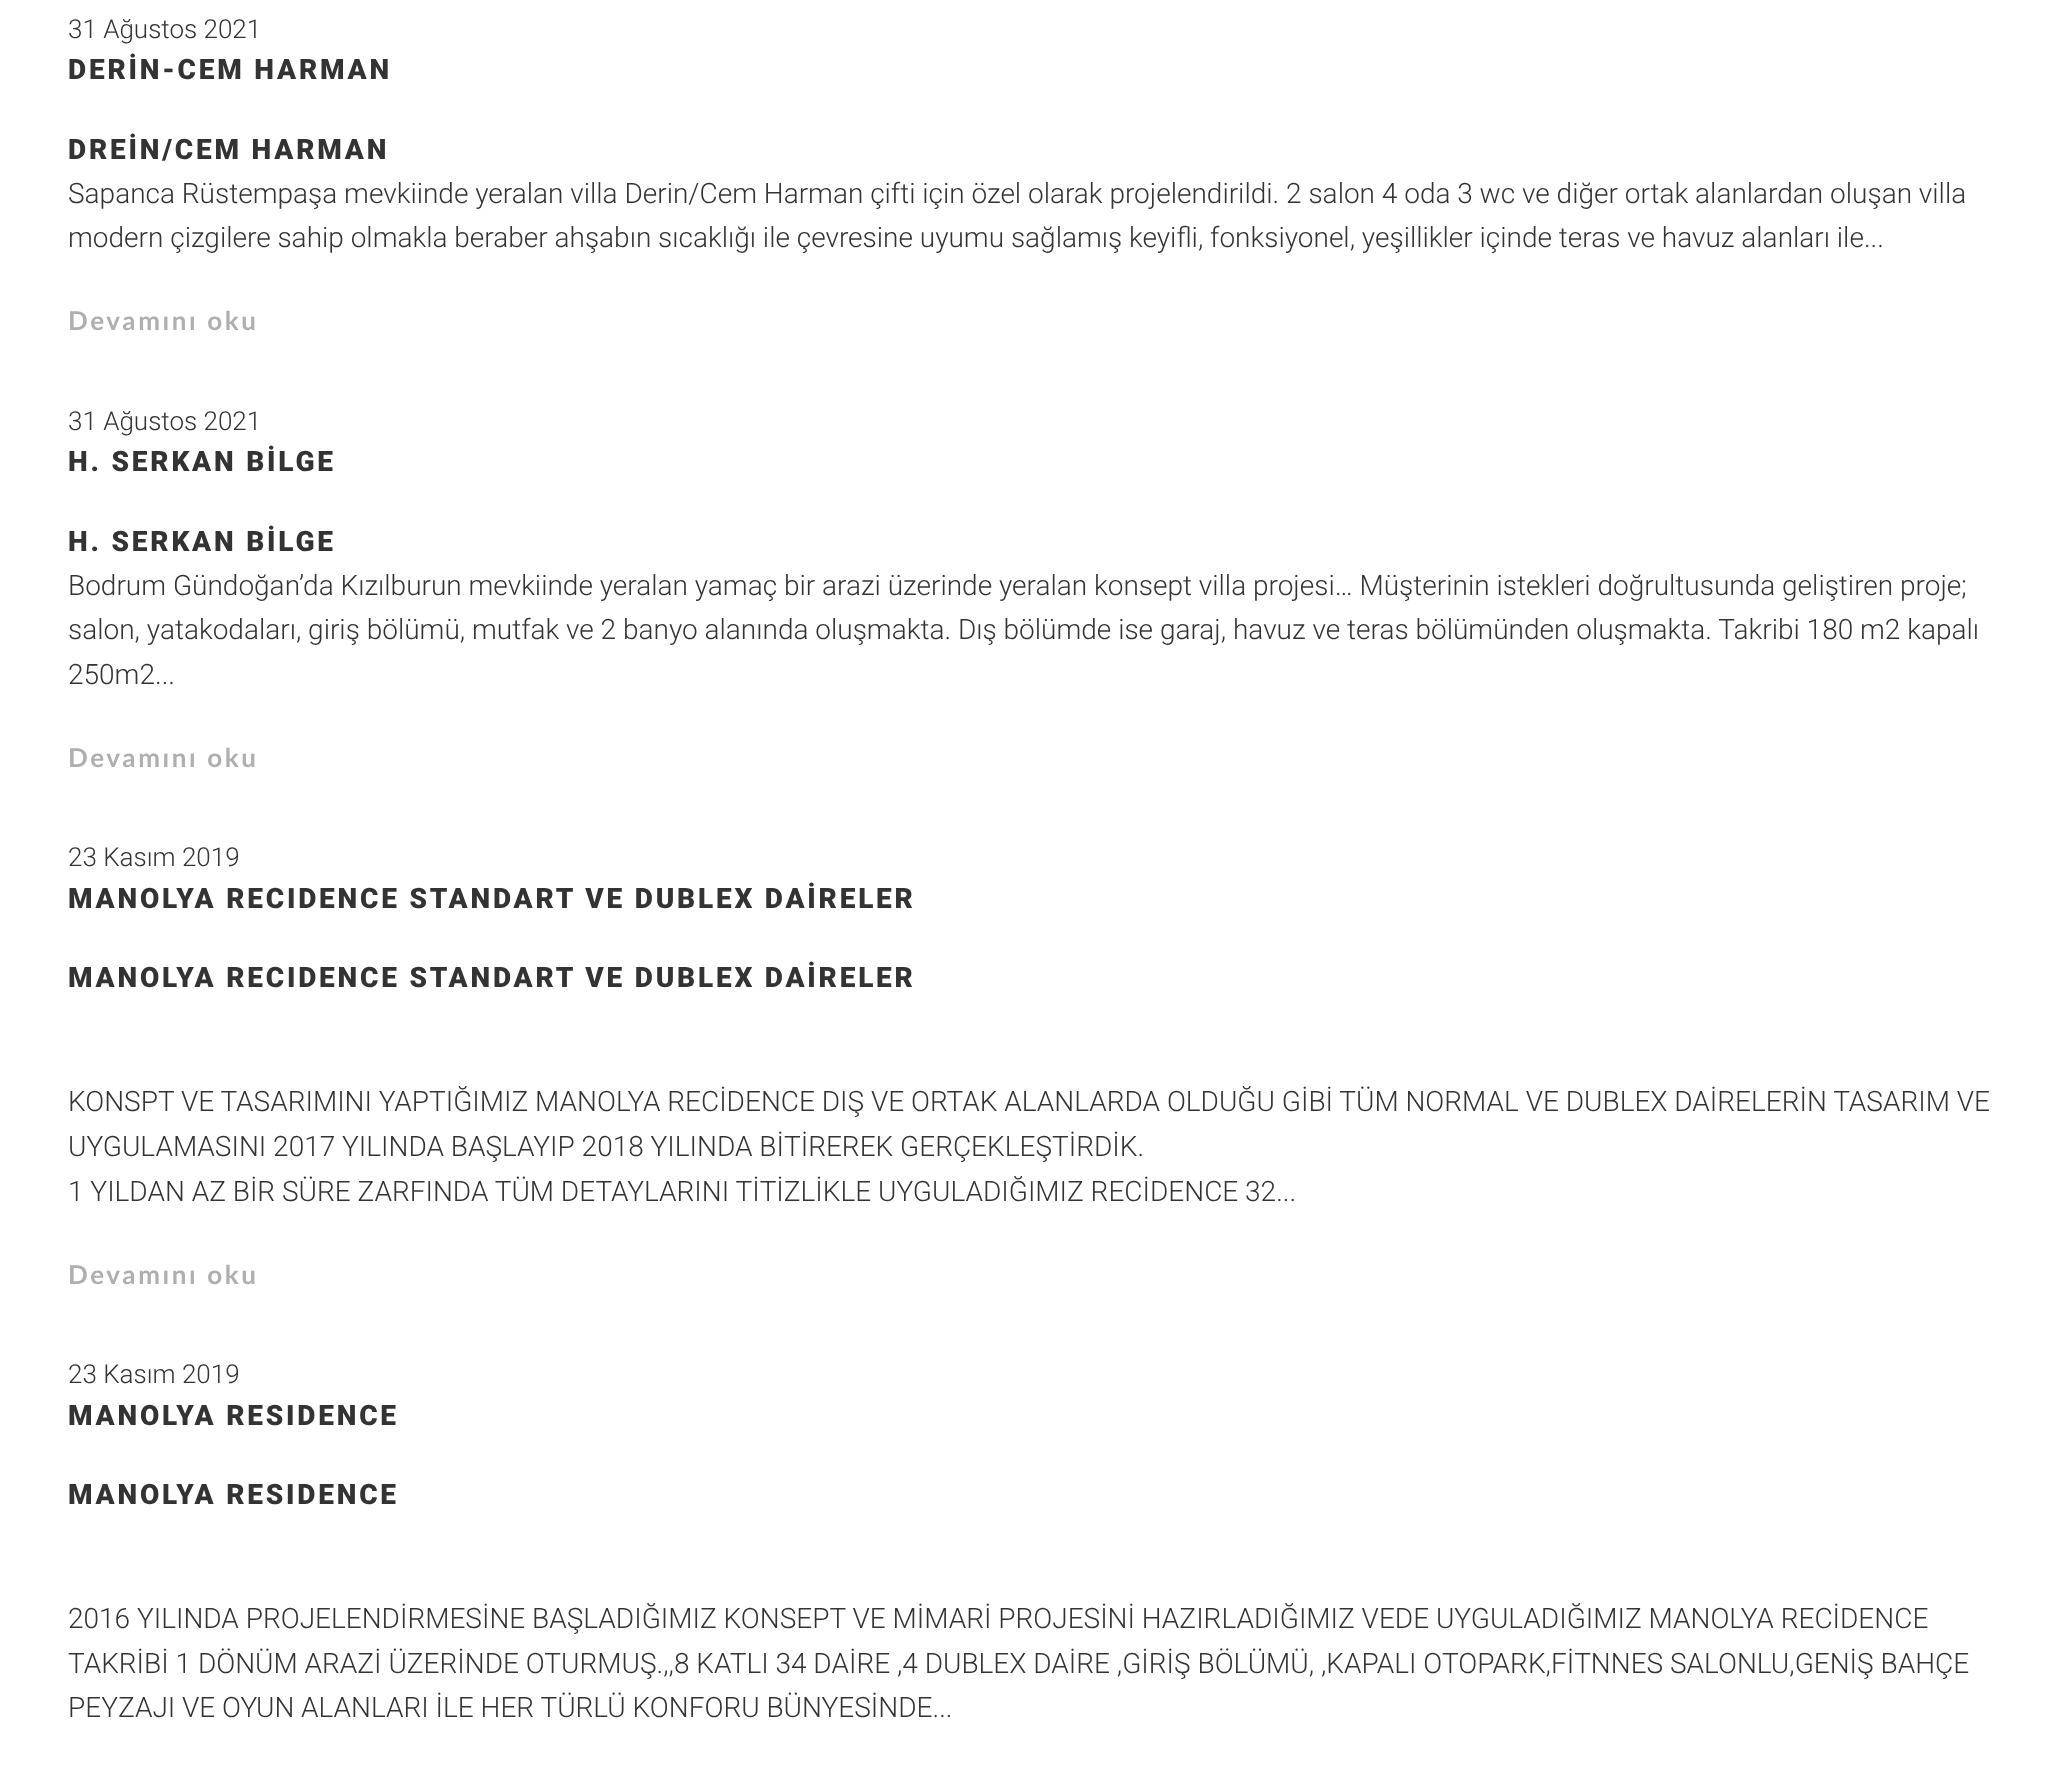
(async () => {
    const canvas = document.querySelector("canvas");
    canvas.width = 2072;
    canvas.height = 1779;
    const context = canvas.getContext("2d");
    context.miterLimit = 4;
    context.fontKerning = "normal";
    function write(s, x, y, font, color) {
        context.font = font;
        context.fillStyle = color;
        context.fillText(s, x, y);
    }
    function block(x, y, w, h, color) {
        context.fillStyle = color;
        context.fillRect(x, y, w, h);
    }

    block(0, 0, 2072, 1779, "rgb(255, 255, 255)");
    write("31 Ağustos 2021", 68, 38, "300 26px Roboto", "rgb(51, 51, 51)");
    context.letterSpacing = "2.8px";
    write("DERİN-CEM HARMAN", 68, 79, "900 28px Roboto", "rgb(51, 51, 51)");
    write("DREİN/CEM HARMAN", 68, 159, "900 28px Roboto", "rgb(51, 51, 51)");
    context.letterSpacing = "0px";
    write("Sapanca Rüstempaşa mevkiinde yeralan villa Derin/Cem Harman çifti için özel olarak projelendirildi. 2 salon 4 oda 3 wc ve diğer ortak alanlardan oluşan villa", 68, 203, "300 28px Roboto", "rgb(51, 51, 51)");
    write("modern çizgilere sahip olmakla beraber ahşabın sıcaklığı ile çevresine uyumu sağlamış keyifli, fonksiyonel, yeşillikler içinde teras ve havuz alanları ile...", 68, 247, "300 28px Roboto", "rgb(51, 51, 51)");
    context.letterSpacing = "2.6px";
    write("Devamını oku", 68, 330, "bold 26px Lato", "rgb(175, 175, 175)");
    context.letterSpacing = "0px";
    write("31 Ağustos 2021", 68, 430, "300 26px Roboto", "rgb(51, 51, 51)");
    context.letterSpacing = "2.8px";
    write("H. SERKAN BİLGE", 68, 471, "900 28px Roboto", "rgb(51, 51, 51)");
    write("H. SERKAN BİLGE", 68, 551, "900 28px Roboto", "rgb(51, 51, 51)");
    context.letterSpacing = "0px";
    write("Bodrum Gündoğan’da Kızılburun mevkiinde yeralan yamaç bir arazi üzerinde yeralan konsept villa projesi… Müşterinin istekleri doğrultusunda geliştiren proje;", 68, 595, "300 28px Roboto", "rgb(51, 51, 51)");
    write("salon, yatakodaları, giriş bölümü, mutfak ve 2 banyo alanında oluşmakta. Dış bölümde ise garaj, havuz ve teras bölümünden oluşmakta. Takribi 180 m2 kapalı", 68, 639, "300 28px Roboto", "rgb(51, 51, 51)");
    write("250m2...", 68, 684, "300 28px Roboto", "rgb(51, 51, 51)");
    context.letterSpacing = "2.6px";
    write("Devamını oku", 68, 767, "bold 26px Lato", "rgb(175, 175, 175)");
    context.letterSpacing = "0px";
    write("23 Kasım 2019", 68, 866, "300 26px Roboto", "rgb(51, 51, 51)");
    context.letterSpacing = "2.8px";
    write("MANOLYA RECIDENCE STANDART VE DUBLEX DAİRELER", 68, 908, "900 28px Roboto", "rgb(51, 51, 51)");
    write("MANOLYA RECIDENCE STANDART VE DUBLEX DAİRELER", 68, 987, "900 28px Roboto", "rgb(51, 51, 51)");
    context.letterSpacing = "0px";
    write("KONSPT VE TASARIMINI YAPTIĞIMIZ MANOLYA RECİDENCE DIŞ VE ORTAK ALANLARDA OLDUĞU GİBİ TÜM NORMAL VE DUBLEX DAİRELERİN TASARIM VE", 68, 1111, "300 28px Roboto", "rgb(51, 51, 51)");
    write("UYGULAMASINI 2017 YILINDA BAŞLAYIP 2018 YILINDA BİTİREREK GERÇEKLEŞTİRDİK.", 68, 1156, "300 28px Roboto", "rgb(51, 51, 51)");
    write("1 YILDAN AZ BİR SÜRE ZARFINDA TÜM DETAYLARINI TİTİZLİKLE UYGULADIĞIMIZ RECİDENCE 32...", 68, 1201, "300 28px Roboto", "rgb(51, 51, 51)");
    context.letterSpacing = "2.6px";
    write("Devamını oku", 68, 1284, "bold 26px Lato", "rgb(175, 175, 175)");
    context.letterSpacing = "0px";
    write("23 Kasım 2019", 68, 1383, "300 26px Roboto", "rgb(51, 51, 51)");
    context.letterSpacing = "2.8px";
    write("MANOLYA RESIDENCE", 68, 1425, "900 28px Roboto", "rgb(51, 51, 51)");
    write("MANOLYA RESIDENCE", 68, 1504, "900 28px Roboto", "rgb(51, 51, 51)");
    context.letterSpacing = "0px";
    write("2016 YILINDA PROJELENDİRMESİNE BAŞLADIĞIMIZ KONSEPT VE MİMARİ PROJESİNİ HAZIRLADIĞIMIZ VEDE UYGULADIĞIMIZ MANOLYA RECİDENCE", 68, 1628, "300 28px Roboto", "rgb(51, 51, 51)");
    write("TAKRİBİ 1 DÖNÜM ARAZİ ÜZERİNDE OTURMUŞ.,,8 KATLI 34 DAİRE ,4 DUBLEX DAİRE ,GİRİŞ BÖLÜMÜ, ,KAPALI OTOPARK,FİTNNES SALONLU,GENİŞ BAHÇE", 68, 1673, "300 28px Roboto", "rgb(51, 51, 51)");
    write("PEYZAJI VE OYUN ALANLARI İLE HER TÜRLÜ KONFORU BÜNYESİNDE...", 68, 1717, "300 28px Roboto", "rgb(51, 51, 51)");
})();
